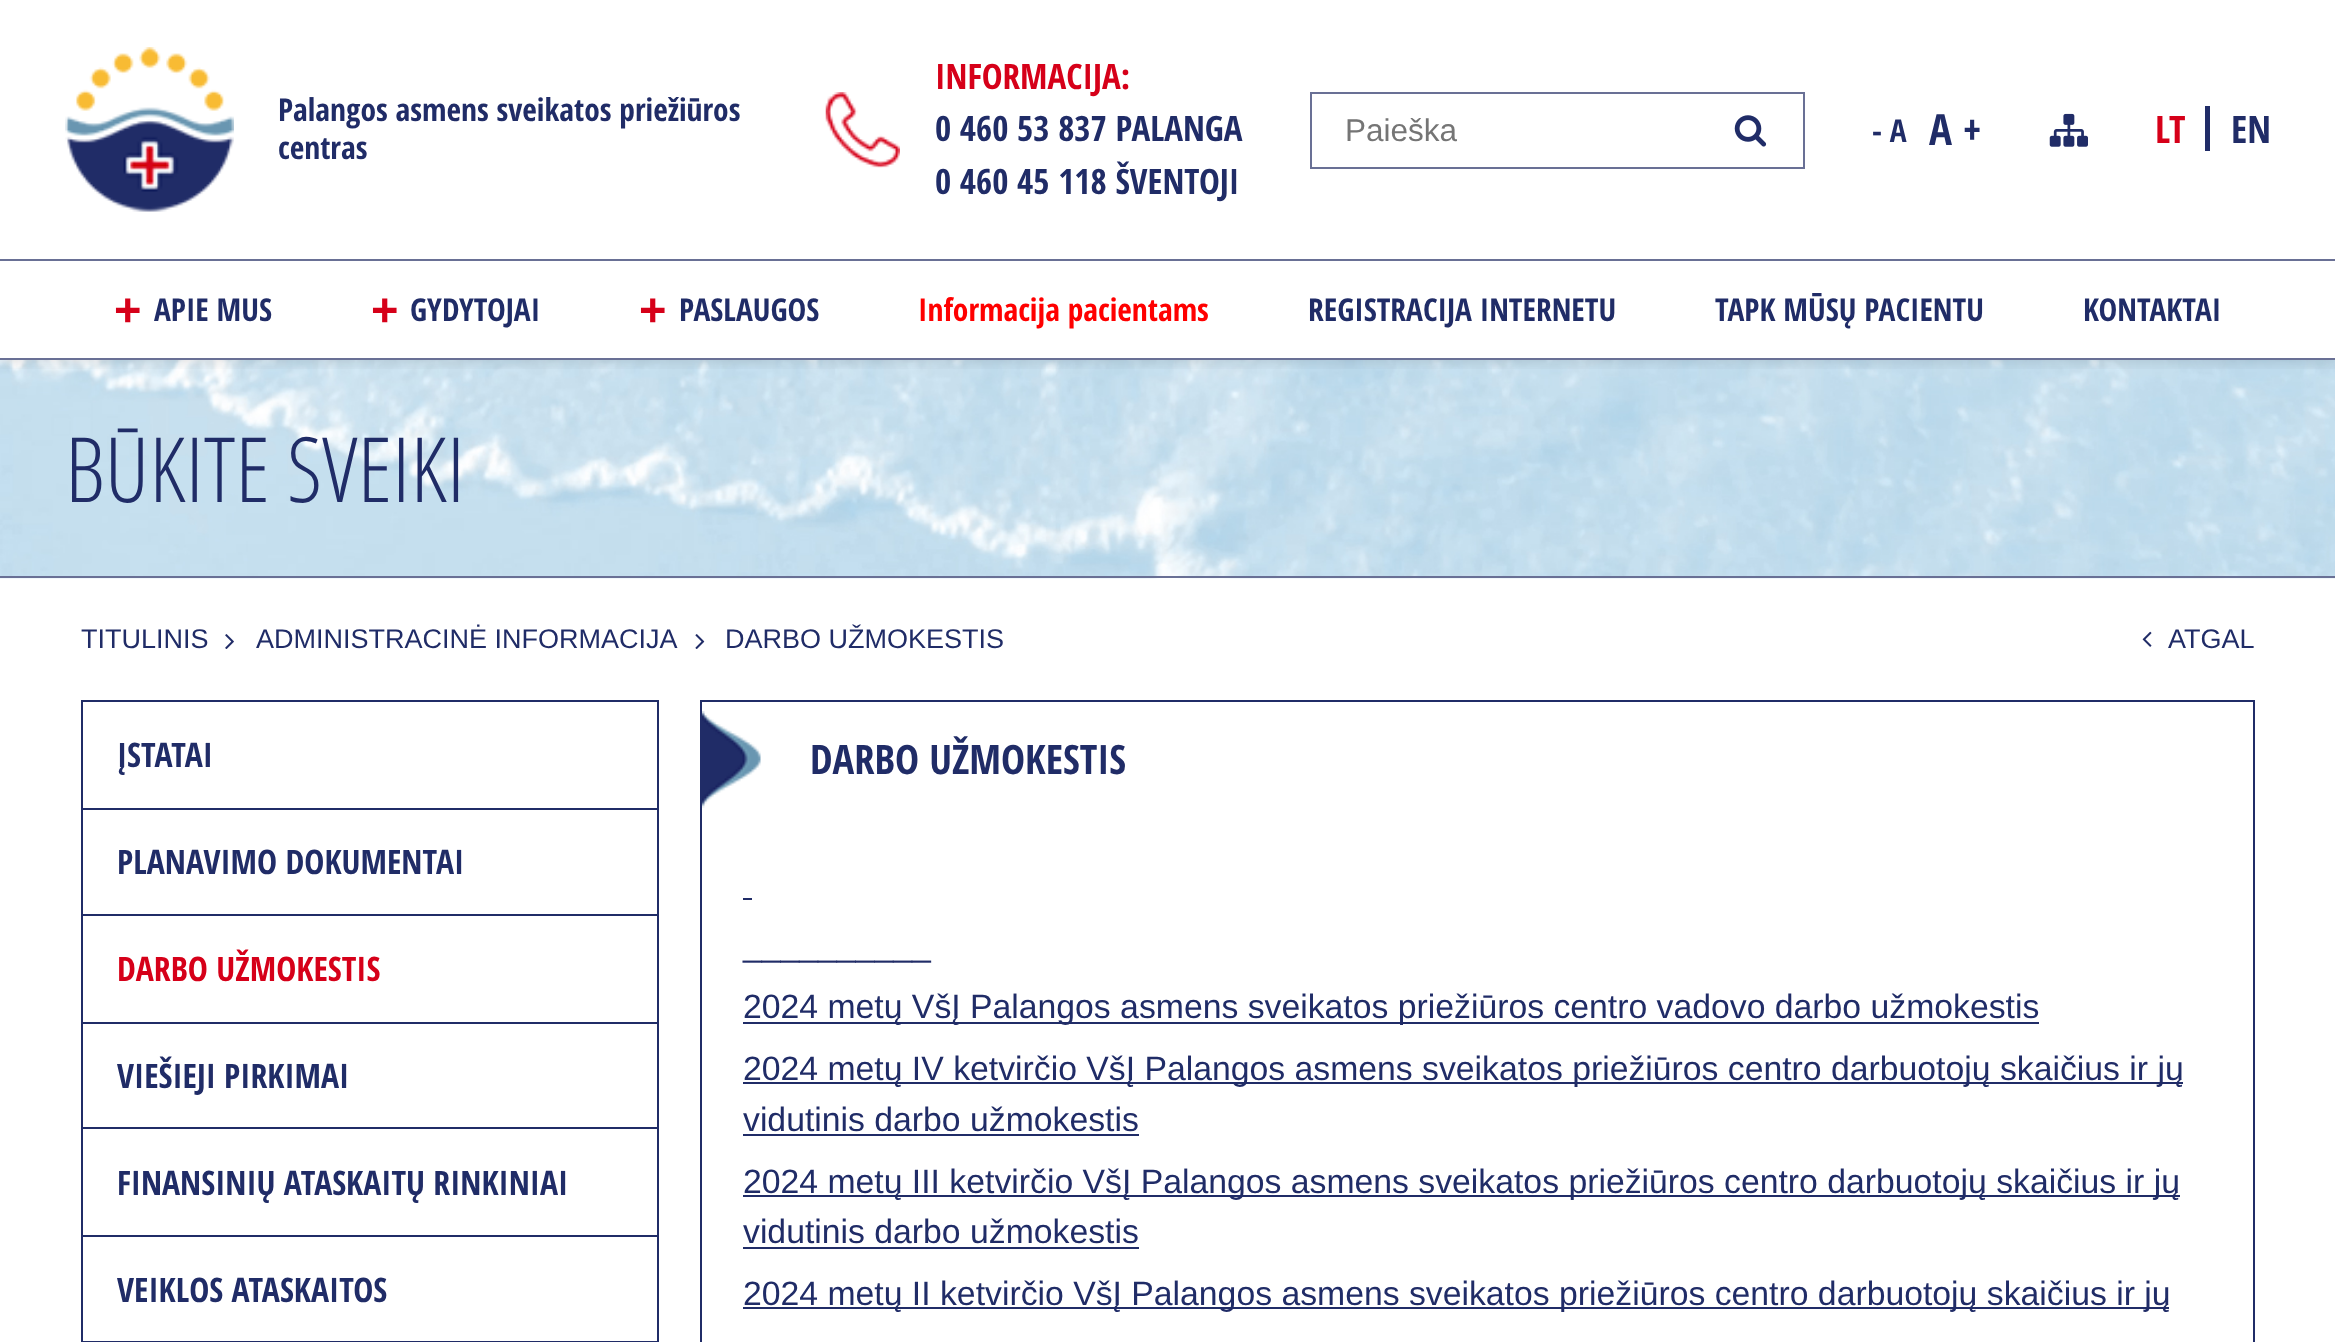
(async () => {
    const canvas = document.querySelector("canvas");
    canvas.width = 2335;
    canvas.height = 1342;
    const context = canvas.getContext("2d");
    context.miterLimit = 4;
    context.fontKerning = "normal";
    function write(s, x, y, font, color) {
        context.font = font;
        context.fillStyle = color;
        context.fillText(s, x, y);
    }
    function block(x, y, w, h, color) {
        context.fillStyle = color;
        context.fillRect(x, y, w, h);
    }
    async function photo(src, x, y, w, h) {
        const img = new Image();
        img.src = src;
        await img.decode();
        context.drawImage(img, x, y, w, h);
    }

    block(0, 0, 2335, 1342, "rgb(255, 255, 255)");
    await photo("media/5.png", 0, 360, 2335, 219);
    context.save();
    context.beginPath();
    context.rect(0, 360, 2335, 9);
    context.clip();
    context.fillStyle = "rgba(0, 0, 0, 0.15)";
    context.filter = "blur(8px)";
    context.beginPath();
    context.rect(0, 0, 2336, 360);
    context.fill();
    context.filter = "none";
    context.restore();
    await photo("media/1.png", 65, 47, 169, 165);
    write("Palangos asmens sveikatos priežiūros", 278, 121, "bold 31.5px Open Sans Condensed", "rgb(32, 44, 103)");
    write("centras", 278, 159, "bold 31.5px Open Sans Condensed", "rgb(32, 44, 103)");
    await photo("media/2.png", 825, 92, 75, 76);
    write("INFORMACIJA:", 935, 89, "bold 35px Open Sans Condensed", "rgb(214, 0, 25)");
    write("0 460 53 837 PALANGA", 935, 141, "bold 35px Open Sans Condensed", "rgb(32, 44, 103)");
    write("0 460 45 118 ŠVENTOJI", 935, 194, "bold 35px Open Sans Condensed", "rgb(32, 44, 103)");
    context.strokeStyle = "rgb(105, 112, 149)";
    context.lineWidth = 2;
    context.strokeRect(1311, 93, 493, 75);
    write("Paieška", 1345, 141, "31.5px Liberation Sans", "rgb(117, 117, 117)");
    await photo("media/3.png", 1734, 115, 33, 32);
    write("- A", 1872, 142, "bold 31.5px Open Sans Condensed", "rgb(32, 44, 103)");
    write("A +", 1929, 145, "bold 43px Open Sans Condensed", "rgb(32, 44, 103)");
    await photo("media/4.png", 2049, 113, 39, 34);
    write("LT", 2155, 143, "bold 38px Open Sans Condensed", "rgb(214, 0, 25)");
    block(2205, 106, 5, 45, "rgb(32, 44, 103)");
    write("EN", 2231, 143, "bold 38px Open Sans Condensed", "rgb(32, 44, 103)");
    block(0, 259, 2335, 2, "rgb(105, 112, 149)");
    write("+", 114, 326, "bold 47px Liberation Sans", "rgb(214, 0, 25)");
    write("APIE MUS", 154, 321, "bold 31.5px Open Sans Condensed", "rgb(32, 44, 103)");
    write("+", 371, 326, "bold 47px Liberation Sans", "rgb(214, 0, 25)");
    write("GYDYTOJAI", 410, 321, "bold 31.5px Open Sans Condensed", "rgb(32, 44, 103)");
    write("+", 639, 326, "bold 47px Liberation Sans", "rgb(214, 0, 25)");
    write("PASLAUGOS", 679, 321, "bold 31.5px Open Sans Condensed", "rgb(32, 44, 103)");
    write("Informacija pacientams", 918, 321, "bold 31.5px Open Sans Condensed", "rgb(255, 0, 0)");
    write("REGISTRACIJA INTERNETU", 1308, 321, "bold 31.5px Open Sans Condensed", "rgb(32, 44, 103)");
    write("TAPK MŪSŲ PACIENTU", 1715, 321, "bold 31.5px Open Sans Condensed", "rgb(32, 44, 103)");
    write("KONTAKTAI", 2083, 321, "bold 31.5px Open Sans Condensed", "rgb(32, 44, 103)");
    block(0, 358, 2335, 2, "rgb(105, 112, 149)");
    block(0, 576, 2335, 2, "rgb(105, 112, 149)");
    write("BŪKITE SVEIKI", 65, 502, "300 90px Open Sans Condensed", "rgb(32, 44, 103)");
    write("TITULINIS", 81, 648, "27px Liberation Sans", "rgb(32, 44, 103)");
    await photo("media/6.png", 225, 634, 9, 15);
    write("ADMINISTRACINĖ INFORMACIJA", 256, 648, "27px Liberation Sans", "rgb(32, 44, 103)");
    await photo("media/7.png", 695, 634, 10, 15);
    write("DARBO UŽMOKESTIS", 725, 648, "27px Liberation Sans", "rgb(32, 44, 103)");
    await photo("media/8.png", 2142, 631, 10, 16);
    write("ATGAL", 2168, 648, "27px Liberation Sans", "rgb(32, 44, 103)");
    context.strokeStyle = "rgb(32, 44, 103)";
    context.strokeRect(82, 701, 576, 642);
    block(83, 808, 574, 2, "rgb(32, 44, 103)");
    write("ĮSTATAI", 117, 767, "bold 33.75px Open Sans Condensed", "rgb(32, 44, 103)");
    block(83, 914, 574, 2, "rgb(32, 44, 103)");
    write("PLANAVIMO DOKUMENTAI", 117, 874, "bold 33.75px Open Sans Condensed", "rgb(32, 44, 103)");
    block(83, 1022, 574, 2, "rgb(32, 44, 103)");
    write("DARBO UŽMOKESTIS", 117, 981, "bold 33.75px Open Sans Condensed", "rgb(214, 0, 25)");
    block(83, 1127, 574, 2, "rgb(32, 44, 103)");
    write("VIEŠIEJI PIRKIMAI", 117, 1088, "bold 33.75px Open Sans Condensed", "rgb(32, 44, 103)");
    block(83, 1235, 574, 2, "rgb(32, 44, 103)");
    write("FINANSINIŲ ATASKAITŲ RINKINIAI", 117, 1195, "bold 33.75px Open Sans Condensed", "rgb(32, 44, 103)");
    block(83, 1341, 574, 1, "rgb(32, 44, 103)");
    write("VEIKLOS ATASKAITOS", 117, 1302, "bold 33.75px Open Sans Condensed", "rgb(32, 44, 103)");
    context.strokeRect(701, 701, 1553, 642);
    await photo("media/9.png", 702, 711, 59, 97);
    write("DARBO UŽMOKESTIS", 810, 774, "bold 40.5px Open Sans Condensed", "rgb(32, 44, 103)");
    block(743, 898, 9, 2, "rgb(32, 44, 103)");
    write("__________", 743, 956, "33.75px Liberation Sans", "rgb(32, 44, 103)");
    block(743, 1022, 1296, 2, "rgb(32, 44, 103)");
    write("2024 metų VšĮ Palangos asmens sveikatos priežiūros centro vadovo darbo užmokestis", 743, 1018, "33.75px Liberation Sans", "rgb(32, 44, 103)");
    block(743, 1082, 1440, 2, "rgb(32, 44, 103)");
    write("2024 metų IV ketvirčio VšĮ Palangos asmens sveikatos priežiūros centro darbuotojų skaičius ir jų", 743, 1080, "33.75px Liberation Sans", "rgb(32, 44, 103)");
    write("vidutinis darbo užmokestis", 743, 1131, "33.75px Liberation Sans", "rgb(32, 44, 103)");
    block(743, 1134, 396, 2, "rgb(32, 44, 103)");
    block(743, 1195, 1437, 2, "rgb(32, 44, 103)");
    write("2024 metų III ketvirčio VšĮ Palangos asmens sveikatos priežiūros centro darbuotojų skaičius ir jų", 743, 1193, "33.75px Liberation Sans", "rgb(32, 44, 103)");
    write("vidutinis darbo užmokestis", 743, 1243, "33.75px Liberation Sans", "rgb(32, 44, 103)");
    block(743, 1247, 396, 2, "rgb(32, 44, 103)");
    block(743, 1307, 1426, 2, "rgb(32, 44, 103)");
    write("2024 metų II ketvirčio VšĮ Palangos asmens sveikatos priežiūros centro darbuotojų skaičius ir jų", 743, 1305, "33.75px Liberation Sans", "rgb(32, 44, 103)");
})();
